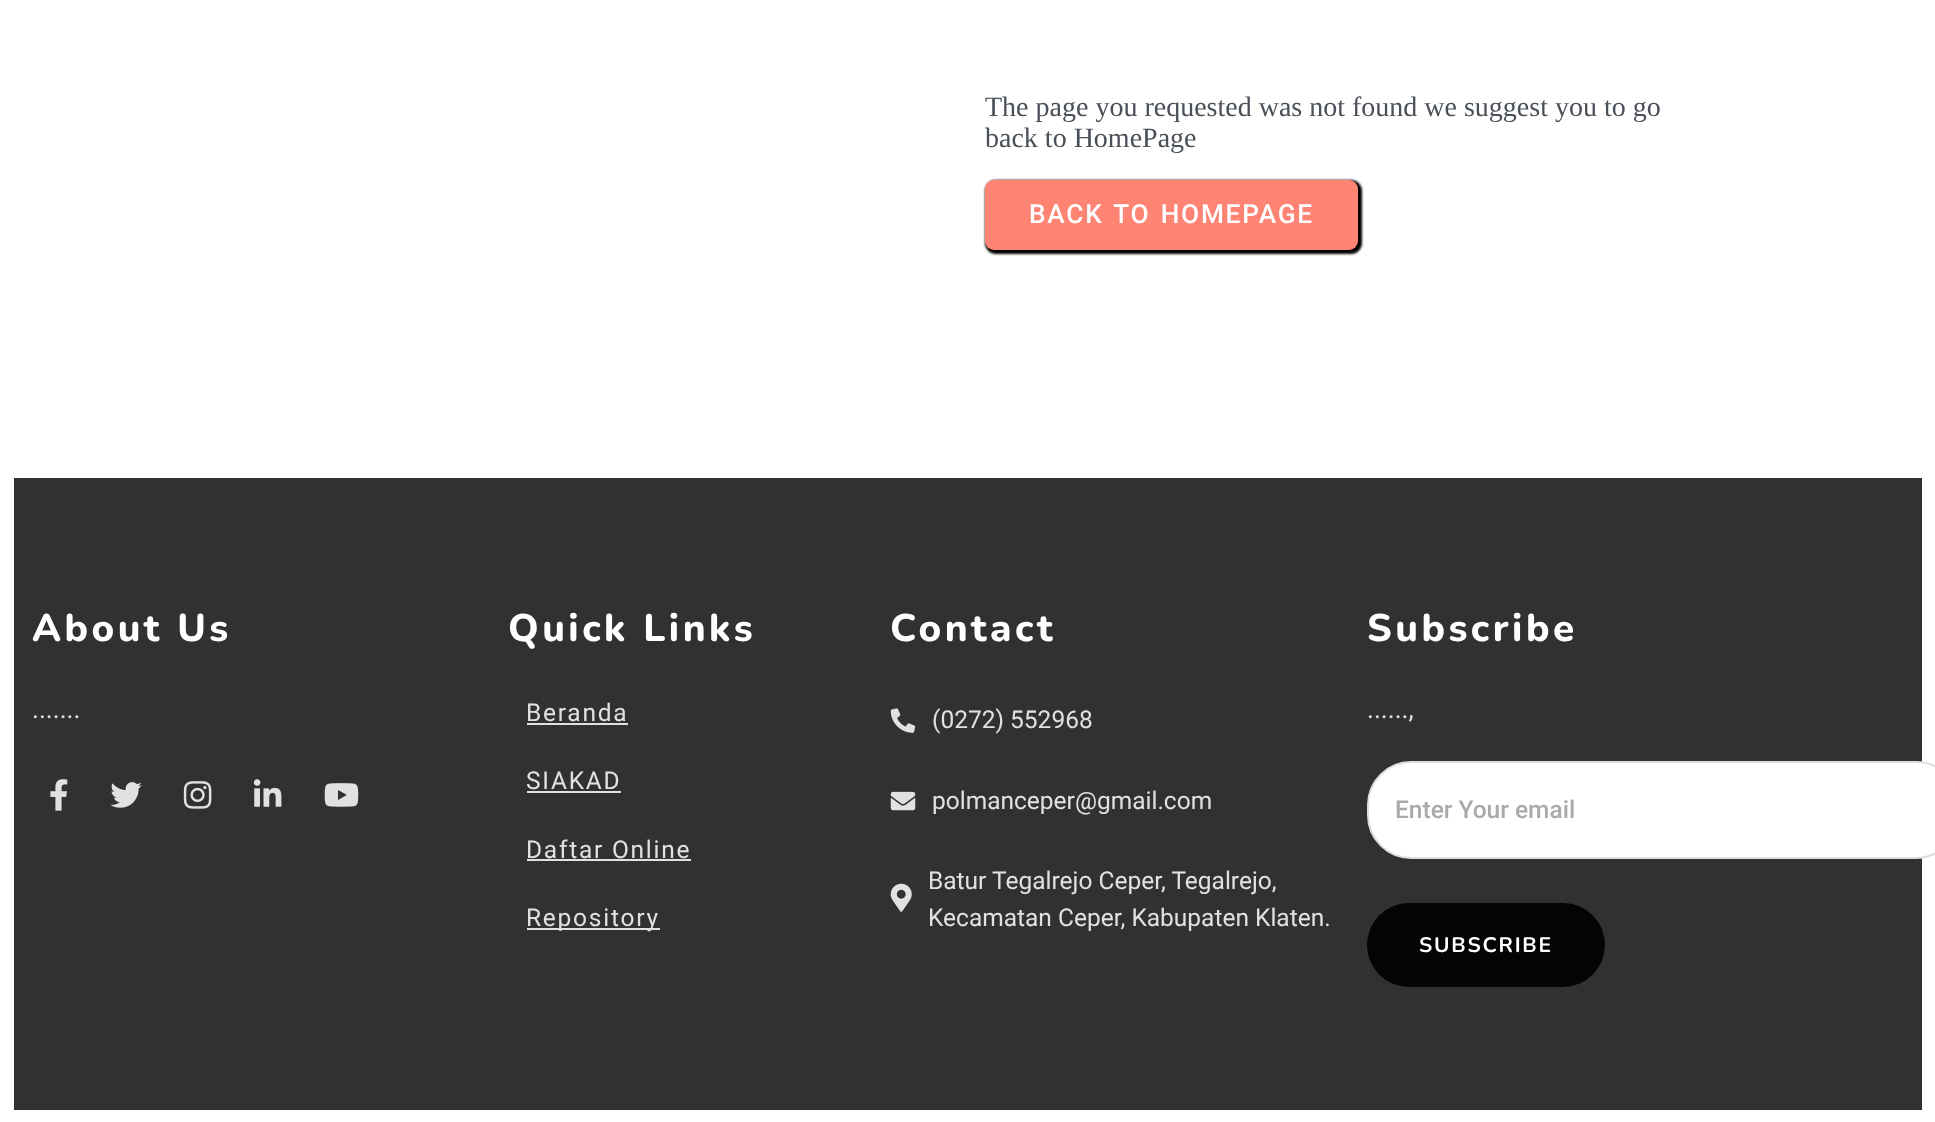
(async () => {
    const canvas = document.querySelector("canvas");
    canvas.width = 1935;
    canvas.height = 1122;
    const context = canvas.getContext("2d");
    context.miterLimit = 4;
    context.fontKerning = "normal";
    function write(s, x, y, font, color) {
        context.font = font;
        context.fillStyle = color;
        context.fillText(s, x, y);
    }
    function block(x, y, w, h, color) {
        context.fillStyle = color;
        context.fillRect(x, y, w, h);
    }
    function card(x, y, w, h, r, color) {
        context.fillStyle = color;
        context.beginPath();
        context.roundRect(x, y, w, h, r);
        context.fill();
    }
    async function photo(src, x, y, w, h) {
        const img = new Image();
        img.src = src;
        await img.decode();
        context.drawImage(img, x, y, w, h);
    }

    block(0, 0, 1935, 1122, "rgb(255, 255, 255)");
    write("The page you requested was not found we suggest you to go", 985, 116, "28px Liberation Serif", "rgb(73, 80, 87)");
    write("back to HomePage", 985, 147, "28px Liberation Serif", "rgb(73, 80, 87)");
    context.fillStyle = "rgb(0, 0, 0)";
    context.filter = "blur(1px)";
    context.beginPath();
    context.roundRect(985, 180, 377, 74, 11);
    context.fill();
    context.filter = "none";
    card(985, 180, 373, 70, 9, "rgb(255, 132, 116)");
    context.letterSpacing = "1.75px";
    context.wordSpacing = "2px";
    write("BACK TO HOMEPAGE", 1029, 223, "500 26.25px Roboto", "rgb(255, 255, 255)");
    block(14, 478, 1908, 632, "rgb(49, 49, 49)");
    context.letterSpacing = "3.5px";
    context.wordSpacing = "0px";
    write("About Us", 32, 641, "800 38.5px Nunito", "rgb(255, 255, 255)");
    context.letterSpacing = "0px";
    write(".......", 32, 718, "26.25px Roboto", "rgb(225, 225, 225)");
    await photo("media/1.png", 50, 779, 18, 32);
    await photo("media/2.png", 110, 782, 32, 26);
    await photo("media/3.png", 183, 781, 29, 28);
    await photo("media/4.png", 253, 779, 29, 28);
    await photo("media/5.png", 324, 783, 35, 24);
    context.letterSpacing = "3.5px";
    write("Quick Links", 508, 641, "800 38.5px Nunito", "rgb(255, 255, 255)");
    context.letterSpacing = "1.75px";
    write("Beranda", 526, 721, "24.5px Roboto", "rgb(225, 225, 225)");
    block(527, 723, 101, 2, "rgb(225, 225, 225)");
    write("SIAKAD", 526, 789, "24.5px Roboto", "rgb(225, 225, 225)");
    block(527, 791, 94, 2, "rgb(225, 225, 225)");
    write("Daftar Online", 526, 858, "24.5px Roboto", "rgb(225, 225, 225)");
    block(527, 859, 164, 2, "rgb(225, 225, 225)");
    block(527, 928, 133, 2, "rgb(225, 225, 225)");
    write("Repository", 526, 926, "24.5px Roboto", "rgb(225, 225, 225)");
    context.letterSpacing = "3.5px";
    write("Contact", 890, 641, "800 38.5px Nunito", "rgb(255, 255, 255)");
    await photo("media/6.png", 890, 708, 26, 25);
    context.letterSpacing = "0px";
    write("(0272) 552968", 932, 728, "24.5px Roboto", "rgb(225, 225, 225)");
    await photo("media/7.png", 890, 791, 26, 20);
    write("polmanceper@gmail.com", 932, 809, "24.5px Roboto", "rgb(225, 225, 225)");
    await photo("media/8.png", 890, 883, 22, 29);
    write("Batur Tegalrejo Ceper, Tegalrejo,", 928, 889, "24.5px Roboto", "rgb(225, 225, 225)");
    write("Kecamatan Ceper, Kabupaten Klaten.", 928, 926, "24.5px Roboto", "rgb(225, 225, 225)");
    context.letterSpacing = "3.5px";
    write("Subscribe", 1367, 641, "800 38.5px Nunito", "rgb(255, 255, 255)");
    context.letterSpacing = "0px";
    write("......,", 1367, 718, "26.25px Roboto", "rgb(225, 225, 225)");
    context.fillStyle = "rgb(255, 255, 255)";
    context.beginPath();
    context.roundRect(1368, 762, 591, 96, 43);
    context.fill();
    context.strokeStyle = "rgb(221, 221, 221)";
    context.lineWidth = 2;
    context.stroke();
    write("Enter Your email", 1395, 818, "500 24.5px Roboto", "rgb(170, 170, 170)");
    card(1367, 903, 238, 84, 42, "rgb(4, 4, 4)");
    context.letterSpacing = "1.75px";
    write("SUBSCRIBE", 1419, 952, "bold 21px Nunito", "rgb(255, 255, 255)");
})();
